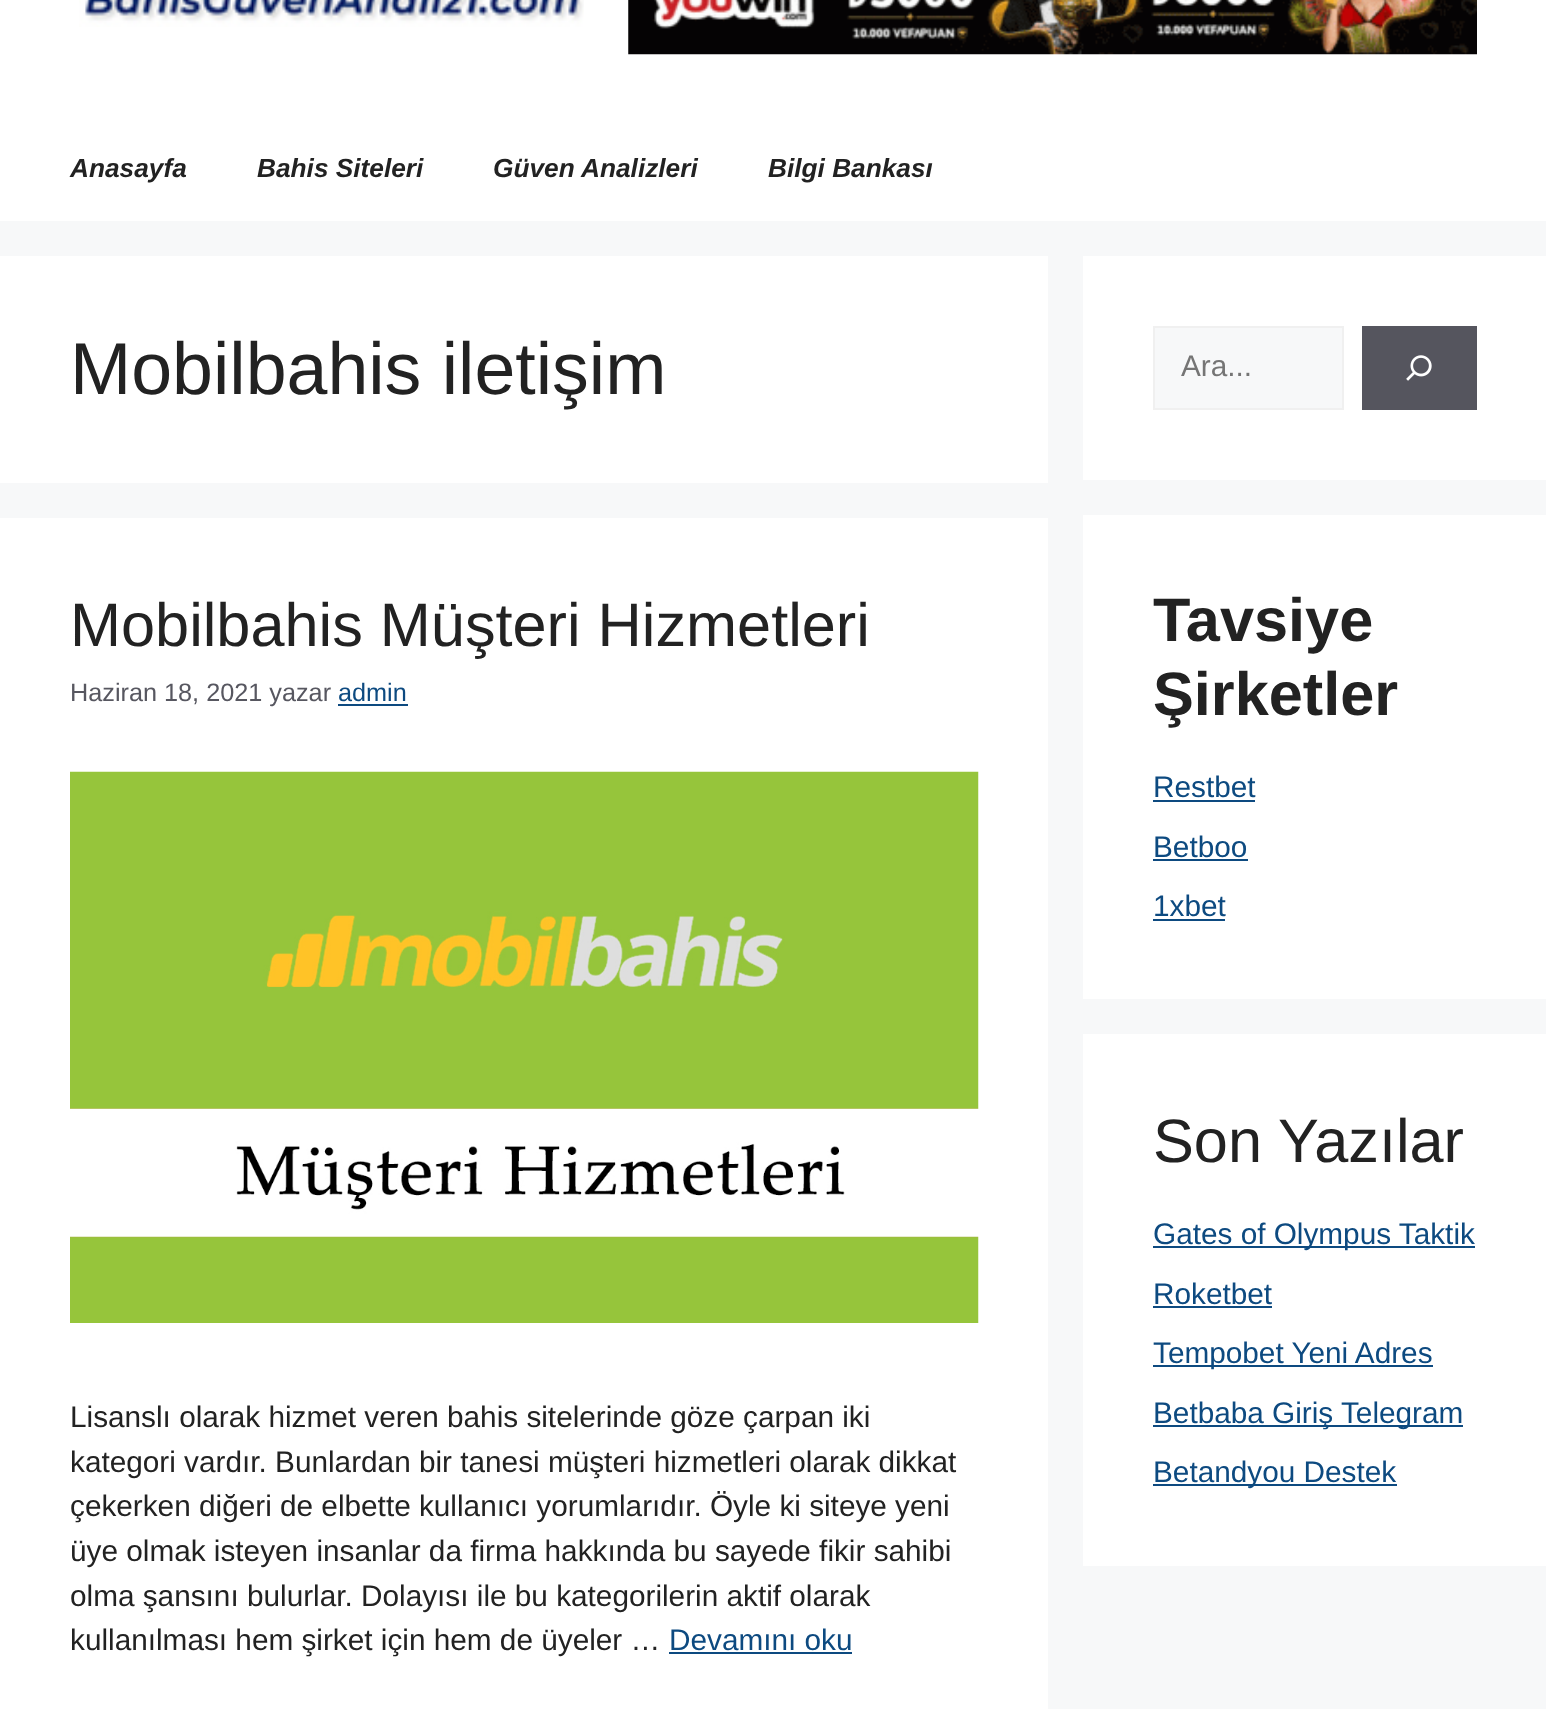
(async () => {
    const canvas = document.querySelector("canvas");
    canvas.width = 1546;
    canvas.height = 1709;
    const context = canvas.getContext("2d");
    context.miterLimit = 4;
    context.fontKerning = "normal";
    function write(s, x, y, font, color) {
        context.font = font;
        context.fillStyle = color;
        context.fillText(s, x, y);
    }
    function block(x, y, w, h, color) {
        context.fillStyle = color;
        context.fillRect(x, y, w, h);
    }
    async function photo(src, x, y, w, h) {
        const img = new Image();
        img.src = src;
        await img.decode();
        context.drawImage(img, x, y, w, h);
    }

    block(0, 0, 1546, 1709, "rgb(247, 248, 249)");
    block(0, 0, 1546, 221, "rgb(255, 255, 255)");
    await photo("media/1.png", 79, 0, 505, 27);
    await photo("media/2.png", 628, 0, 849, 55);
    write("Anasayfa", 70, 177, "italic bold 26.25px Liberation Sans", "rgb(34, 34, 34)");
    write("Bahis Siteleri", 257, 177, "italic bold 26.25px Liberation Sans", "rgb(34, 34, 34)");
    write("Güven Analizleri", 493, 177, "italic bold 26.25px Liberation Sans", "rgb(34, 34, 34)");
    write("Bilgi Bankası", 768, 177, "italic bold 26.25px Liberation Sans", "rgb(34, 34, 34)");
    block(0, 256, 1048, 227, "rgb(255, 255, 255)");
    write("Mobilbahis iletişim", 70, 394, "73.5px Liberation Sans", "rgb(34, 34, 34)");
    block(0, 518, 1048, 1191, "rgb(255, 255, 255)");
    write("Mobilbahis Müşteri Hizmetleri", 70, 646, "61.25px Liberation Sans", "rgb(34, 34, 34)");
    write("Haziran 18, 2021 yazar", 70, 701, "25.25px Liberation Sans", "rgb(87, 87, 96)");
    write("admin", 338, 701, "25.25px Liberation Sans", "rgb(13, 74, 128)");
    block(338, 704, 70, 2, "rgb(13, 74, 128)");
    await photo("media/3.png", 70, 771, 909, 552);
    write("Lisanslı olarak hizmet veren bahis sitelerinde göze çarpan iki", 70, 1427, "29.75px Liberation Sans", "rgb(34, 34, 34)");
    write("kategori vardır. Bunlardan bir tanesi müşteri hizmetleri olarak dikkat", 70, 1472, "29.75px Liberation Sans", "rgb(34, 34, 34)");
    write("çekerken diğeri de elbette kullanıcı yorumlarıdır. Öyle ki siteye yeni", 70, 1516, "29.75px Liberation Sans", "rgb(34, 34, 34)");
    write("üye olmak isteyen insanlar da firma hakkında bu sayede fikir sahibi", 70, 1561, "29.75px Liberation Sans", "rgb(34, 34, 34)");
    write("olma şansını bulurlar. Dolayısı ile bu kategorilerin aktif olarak", 70, 1606, "29.75px Liberation Sans", "rgb(34, 34, 34)");
    write("kullanılması hem şirket için hem de üyeler …", 70, 1650, "29.75px Liberation Sans", "rgb(34, 34, 34)");
    write("Devamını oku", 669, 1650, "29.75px Liberation Sans", "rgb(13, 74, 128)");
    block(669, 1652, 183, 2, "rgb(13, 74, 128)");
    block(1083, 256, 463, 224, "rgb(255, 255, 255)");
    context.fillStyle = "rgb(247, 248, 249)";
    context.beginPath();
    context.rect(1154, 327, 189, 82);
    context.fill();
    context.strokeStyle = "rgb(240, 240, 240)";
    context.lineWidth = 2;
    context.stroke();
    write("Ara...", 1181, 376, "29.75px Liberation Sans", "rgb(117, 117, 117)");
    block(1362, 326, 115, 84, "rgb(85, 85, 94)");
    await photo("media/4.png", 1406, 355, 26, 26);
    block(1083, 515, 463, 484, "rgb(255, 255, 255)");
    write("Tavsiye", 1153, 641, "bold 61.25px Liberation Sans", "rgb(34, 34, 34)");
    write("Şirketler", 1153, 715, "bold 61.25px Liberation Sans", "rgb(34, 34, 34)");
    write("Restbet", 1153, 797, "29.75px Liberation Sans", "rgb(13, 74, 128)");
    block(1153, 800, 102, 2, "rgb(13, 74, 128)");
    write("Betboo", 1153, 857, "29.75px Liberation Sans", "rgb(13, 74, 128)");
    block(1153, 859, 95, 2, "rgb(13, 74, 128)");
    write("1xbet", 1153, 916, "29.75px Liberation Sans", "rgb(13, 74, 128)");
    block(1153, 919, 72, 2, "rgb(13, 74, 128)");
    block(1083, 1034, 463, 532, "rgb(255, 255, 255)");
    write("Son Yazılar", 1153, 1162, "61.25px Liberation Sans", "rgb(34, 34, 34)");
    block(1153, 1246, 322, 2, "rgb(13, 74, 128)");
    write("Gates of Olympus Taktik", 1153, 1244, "29.75px Liberation Sans", "rgb(13, 74, 128)");
    write("Roketbet", 1153, 1304, "29.75px Liberation Sans", "rgb(13, 74, 128)");
    block(1153, 1306, 119, 2, "rgb(13, 74, 128)");
    block(1153, 1365, 280, 2, "rgb(13, 74, 128)");
    write("Tempobet Yeni Adres", 1153, 1363, "29.75px Liberation Sans", "rgb(13, 74, 128)");
    block(1153, 1425, 310, 2, "rgb(13, 74, 128)");
    write("Betbaba Giriş Telegram", 1153, 1423, "29.75px Liberation Sans", "rgb(13, 74, 128)");
    block(1153, 1484, 244, 2, "rgb(13, 74, 128)");
    write("Betandyou Destek", 1153, 1482, "29.75px Liberation Sans", "rgb(13, 74, 128)");
})();
